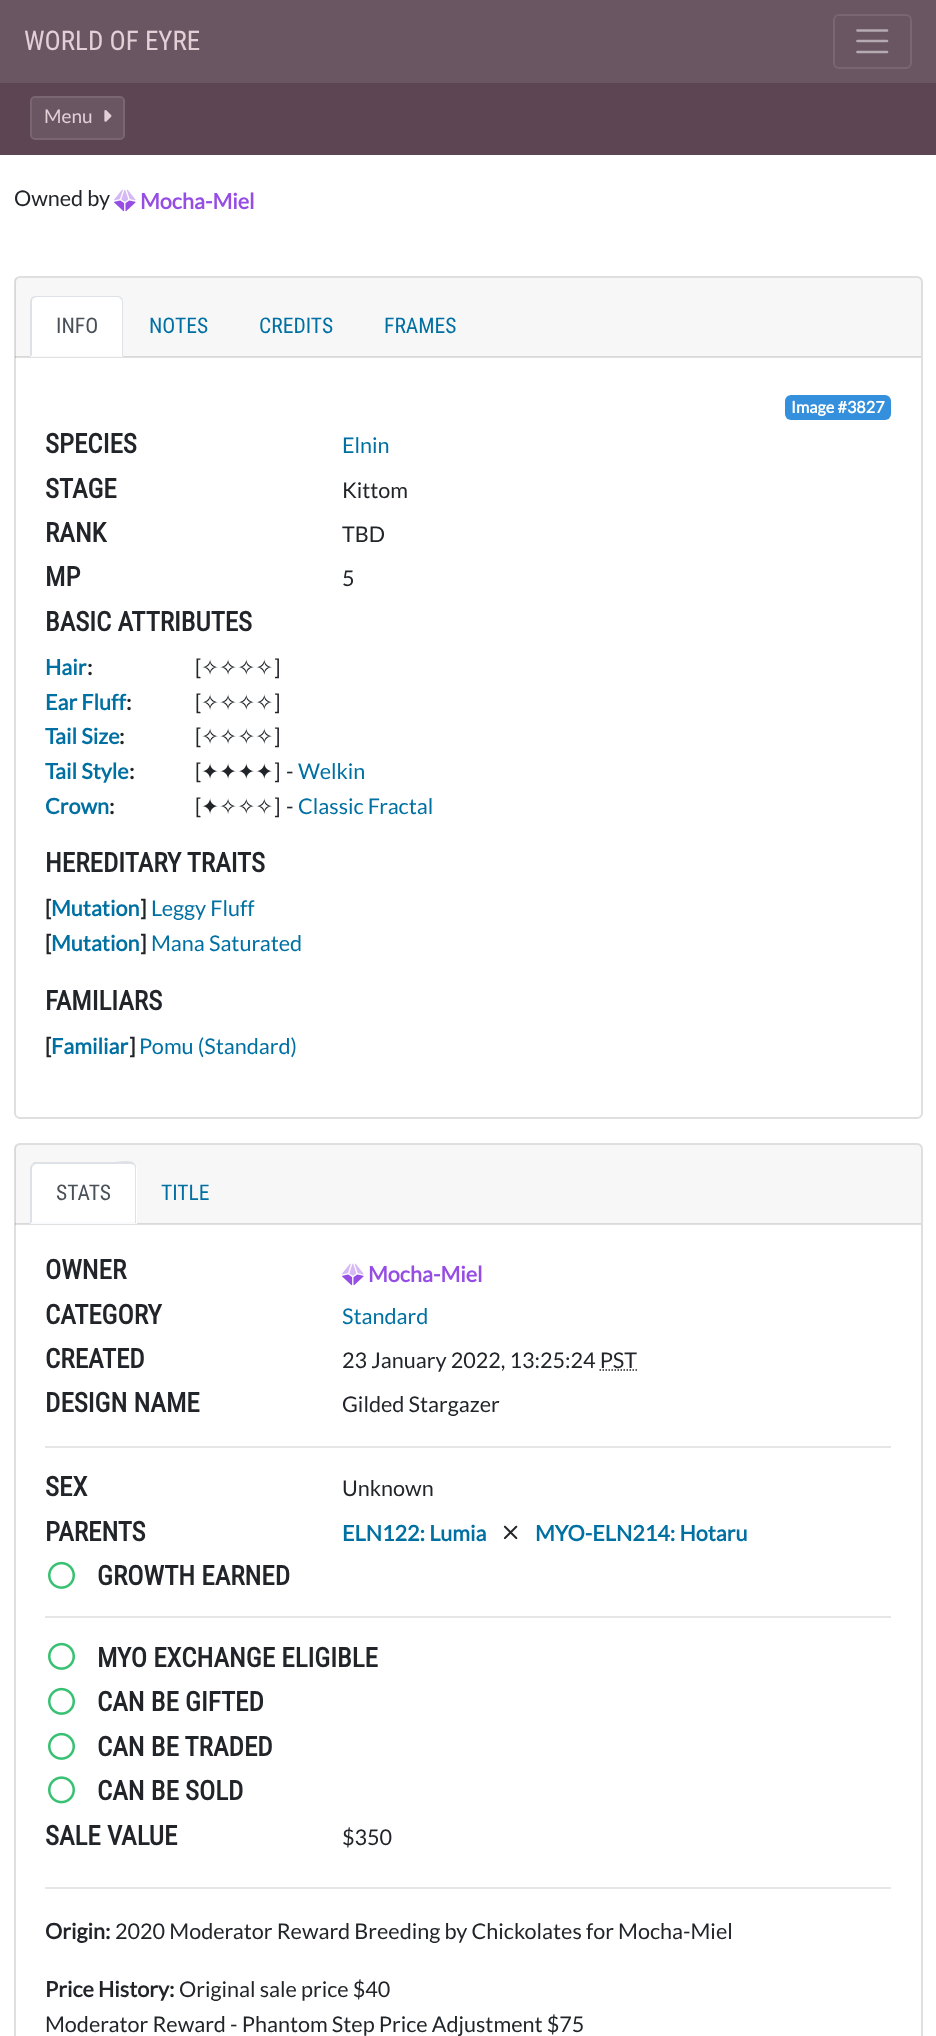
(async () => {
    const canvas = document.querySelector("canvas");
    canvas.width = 936;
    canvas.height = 2036;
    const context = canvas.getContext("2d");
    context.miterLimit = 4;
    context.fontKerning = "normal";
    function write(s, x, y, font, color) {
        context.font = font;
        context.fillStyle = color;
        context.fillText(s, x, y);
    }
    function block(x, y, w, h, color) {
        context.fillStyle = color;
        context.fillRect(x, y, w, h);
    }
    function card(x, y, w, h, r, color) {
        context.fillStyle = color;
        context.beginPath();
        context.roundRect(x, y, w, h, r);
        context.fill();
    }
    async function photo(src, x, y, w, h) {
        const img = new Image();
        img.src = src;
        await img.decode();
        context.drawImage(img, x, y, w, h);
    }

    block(0, 0, 936, 2036, "rgb(255, 255, 255)");
    block(0, 0, 936, 83, "rgb(106, 85, 98)");
    write("WORLD OF EYRE", 24, 50, "27px Roboto Condensed", "rgb(226, 208, 215)");
    context.beginPath();
    context.roundRect(834, 15, 77, 53, 5);
    context.strokeStyle = "rgb(121, 102, 114)";
    context.lineWidth = 2;
    context.stroke();
    context.beginPath();
    context.moveTo(857.5, 30.5);
    context.lineTo(887, 30.5);
    context.moveTo(857.5, 41);
    context.lineTo(887, 41);
    context.moveTo(857.5, 52);
    context.lineTo(887, 52);
    context.strokeStyle = "rgb(181, 170, 177)";
    context.lineWidth = 2.7;
    context.lineCap = "round";
    context.stroke();
    block(0, 83, 936, 72, "rgb(93, 69, 84)");
    card(30, 96, 95, 44, 5, "rgb(106, 85, 98)");
    context.beginPath();
    context.roundRect(31, 97, 93, 42, 4);
    context.strokeStyle = "rgba(255, 255, 255, 0.1)";
    context.lineWidth = 2;
    context.stroke();
    write("Menu", 44, 123, "19px Lato", "rgb(226, 208, 215)");
    await photo("media/1.png", 104, 110, 8, 12);
    write("Owned by", 14, 206, "21.6px Lato", "rgb(33, 37, 41)");
    await photo("media/3.png", 114, 200, 22, 12);
    await photo("media/2.png", 114, 189, 22, 13);
    write("Mocha-Miel", 140, 209, "bold 21.6px Lato", "rgb(149, 77, 227)");
    context.beginPath();
    context.roundRect(15, 277, 907, 841, 5);
    context.strokeStyle = "rgb(223, 223, 223)";
    context.stroke();
    block(15, 278, 906, 79, "rgba(0, 0, 0, 0.03)");
    block(15, 356, 906, 2, "rgba(0, 0, 0, 0.12)");
    context.fillStyle = "rgb(255, 255, 255)";
    context.beginPath();
    context.roundRect(30, 296, 93, 61, [6, 6, 0, 0]);
    context.fill();
    context.fillStyle = "rgb(222, 226, 230)";
    context.beginPath();
    context.moveTo(36, 296);
    context.bezierCurveTo(35, 296, 33, 296, 32, 297);
    context.lineTo(33, 299);
    context.bezierCurveTo(34, 298, 35, 297, 36, 297);
    context.lineTo(117, 297);
    context.bezierCurveTo(118, 297, 119, 297, 120, 298);
    context.lineTo(121, 297);
    context.bezierCurveTo(120, 296, 118, 296, 117, 296);
    context.closePath();
    context.fill();
    context.beginPath();
    context.moveTo(121, 297);
    context.bezierCurveTo(122, 298, 123, 300, 123, 302);
    context.lineTo(123, 357);
    context.lineTo(122, 356);
    context.lineTo(122, 301);
    context.lineTo(120, 298);
    context.closePath();
    context.fill();
    context.fillStyle = "rgb(248, 250, 252)";
    context.beginPath();
    context.moveTo(123, 357);
    context.lineTo(122, 356);
    context.lineTo(32, 356);
    context.lineTo(32, 355);
    context.lineTo(30, 357);
    context.closePath();
    context.fill();
    context.fillStyle = "rgb(222, 226, 230)";
    context.beginPath();
    context.moveTo(30, 357);
    context.lineTo(32, 355);
    context.lineTo(32, 302);
    context.bezierCurveTo(32, 301, 32, 299, 33, 299);
    context.lineTo(32, 297);
    context.bezierCurveTo(31, 298, 30, 300, 30, 302);
    context.closePath();
    context.fill();
    write("INFO", 56, 333, "21.6px Roboto Condensed", "rgb(73, 80, 87)");
    write("NOTES", 149, 333, "21.6px Roboto Condensed", "rgb(0, 112, 162)");
    write("CREDITS", 259, 333, "21.6px Roboto Condensed", "rgb(0, 112, 162)");
    write("FRAMES", 384, 333, "21.6px Roboto Condensed", "rgb(0, 112, 162)");
    card(785, 395, 106, 25, 6, "rgb(52, 144, 220)");
    write("Image #3827", 791, 413, "bold 16.25px Lato", "rgb(255, 255, 255)");
    write("SPECIES", 45, 453, "bold 27px Roboto Condensed", "rgb(33, 37, 41)");
    write("Elnin", 342, 453, "21.6px Lato", "rgb(0, 112, 162)");
    write("STAGE", 45, 498, "bold 27px Roboto Condensed", "rgb(33, 37, 41)");
    write("Kittom", 342, 498, "21.6px Lato", "rgb(33, 37, 41)");
    write("RANK", 45, 542, "bold 27px Roboto Condensed", "rgb(33, 37, 41)");
    write("TBD", 342, 542, "21.6px Lato", "rgb(33, 37, 41)");
    write("MP", 45, 586, "bold 27px Roboto Condensed", "rgb(33, 37, 41)");
    write("5", 342, 586, "21.6px Lato", "rgb(33, 37, 41)");
    write("BASIC ATTRIBUTES", 45, 631, "bold 27px Roboto Condensed", "rgb(33, 37, 41)");
    write("Hair", 45, 675, "bold 21.6px Lato", "rgb(0, 112, 162)");
    write(":", 87, 675, "bold 21.6px Lato", "rgb(33, 37, 41)");
    write("[", 195, 675, "21.6px Lato", "rgb(33, 37, 41)");
    write("✧✧✧✧", 201, 675, "21.6px DejaVu Sans", "rgb(33, 37, 41)");
    write("]", 274, 675, "21.6px Lato", "rgb(33, 37, 41)");
    write("Ear Fluff", 45, 710, "bold 21.6px Lato", "rgb(0, 112, 162)");
    write(":", 126, 710, "bold 21.6px Lato", "rgb(33, 37, 41)");
    write("[", 195, 710, "21.6px Lato", "rgb(33, 37, 41)");
    write("✧✧✧✧", 201, 710, "21.6px DejaVu Sans", "rgb(33, 37, 41)");
    write("]", 274, 710, "21.6px Lato", "rgb(33, 37, 41)");
    write("Tail Size", 45, 744, "bold 21.6px Lato", "rgb(0, 112, 162)");
    write(":", 119, 744, "bold 21.6px Lato", "rgb(33, 37, 41)");
    write("[", 195, 744, "21.6px Lato", "rgb(33, 37, 41)");
    write("✧✧✧✧", 201, 744, "21.6px DejaVu Sans", "rgb(33, 37, 41)");
    write("]", 274, 744, "21.6px Lato", "rgb(33, 37, 41)");
    write("Tail Style", 45, 779, "bold 21.6px Lato", "rgb(0, 112, 162)");
    write(":", 129, 779, "bold 21.6px Lato", "rgb(33, 37, 41)");
    write("[", 195, 779, "21.6px Lato", "rgb(33, 37, 41)");
    write("✦✦✦✦", 201, 779, "21.6px DejaVu Sans", "rgb(33, 37, 41)");
    write("]", 274, 779, "21.6px Lato", "rgb(33, 37, 41)");
    write("-", 286, 779, "21.6px Lato", "rgb(33, 37, 41)");
    write("Welkin", 298, 779, "21.6px Lato", "rgb(0, 112, 162)");
    write("Crown", 45, 814, "bold 21.6px Lato", "rgb(0, 112, 162)");
    write(":", 109, 814, "bold 21.6px Lato", "rgb(33, 37, 41)");
    write("[", 195, 814, "21.6px Lato", "rgb(33, 37, 41)");
    write("✦✧✧✧", 201, 814, "21.6px DejaVu Sans", "rgb(33, 37, 41)");
    write("]", 274, 814, "21.6px Lato", "rgb(33, 37, 41)");
    write("-", 286, 814, "21.6px Lato", "rgb(33, 37, 41)");
    write("Classic Fractal", 298, 814, "21.6px Lato", "rgb(0, 112, 162)");
    write("HEREDITARY TRAITS", 45, 872, "bold 27px Roboto Condensed", "rgb(33, 37, 41)");
    write("[", 45, 916, "bold 21.6px Lato", "rgb(33, 37, 41)");
    write("Mutation", 51, 916, "bold 21.6px Lato", "rgb(0, 112, 162)");
    write("]", 140, 916, "bold 21.6px Lato", "rgb(33, 37, 41)");
    write("Leggy Fluff", 151, 916, "21.6px Lato", "rgb(0, 112, 162)");
    write("[", 45, 951, "bold 21.6px Lato", "rgb(33, 37, 41)");
    write("Mutation", 51, 951, "bold 21.6px Lato", "rgb(0, 112, 162)");
    write("]", 140, 951, "bold 21.6px Lato", "rgb(33, 37, 41)");
    write("Mana Saturated", 151, 951, "21.6px Lato", "rgb(0, 112, 162)");
    write("FAMILIARS", 45, 1010, "bold 27px Roboto Condensed", "rgb(33, 37, 41)");
    write("[", 45, 1054, "bold 21.6px Lato", "rgb(33, 37, 41)");
    write("Familiar", 51, 1054, "bold 21.6px Lato", "rgb(0, 112, 162)");
    write("]", 129, 1054, "bold 21.6px Lato", "rgb(33, 37, 41)");
    write("Pomu (Standard)", 139, 1054, "21.6px Lato", "rgb(0, 112, 162)");
    context.beginPath();
    context.roundRect(15, 1144, 907, 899, 5);
    context.stroke();
    block(15, 1145, 906, 79, "rgba(0, 0, 0, 0.03)");
    block(15, 1223, 906, 2, "rgba(0, 0, 0, 0.12)");
    context.fillStyle = "rgb(255, 255, 255)";
    context.beginPath();
    context.roundRect(30, 1163, 107, 61, [6, 6, 0, 0]);
    context.fill();
    context.fillStyle = "rgb(222, 226, 230)";
    context.beginPath();
    context.moveTo(36, 1164);
    context.bezierCurveTo(35, 1164, 34, 1165, 33, 1166);
    context.lineTo(32, 1164);
    context.lineTo(34, 1162);
    context.lineTo(116, 1162);
    context.bezierCurveTo(118, 1162, 131, 1159, 135, 1164);
    context.lineTo(134, 1165);
    context.bezierCurveTo(133, 1165, 132, 1164, 130, 1164);
    context.closePath();
    context.fill();
    context.beginPath();
    context.moveTo(135, 1164);
    context.bezierCurveTo(136, 1165, 136, 1167, 136, 1168);
    context.lineTo(136, 1224);
    context.lineTo(134, 1222);
    context.lineTo(135, 1222);
    context.lineTo(135, 1167);
    context.lineTo(134, 1165);
    context.closePath();
    context.fill();
    context.fillStyle = "rgb(248, 250, 252)";
    context.beginPath();
    context.moveTo(136, 1224);
    context.lineTo(134, 1222);
    context.lineTo(32, 1222);
    context.lineTo(30, 1224);
    context.closePath();
    context.fill();
    context.fillStyle = "rgb(222, 226, 230)";
    context.beginPath();
    context.moveTo(30, 1224);
    context.lineTo(32, 1222);
    context.lineTo(32, 1168);
    context.lineTo(33, 1166);
    context.lineTo(32, 1164);
    context.bezierCurveTo(31, 1165, 30, 1167, 30, 1168);
    context.closePath();
    context.fill();
    write("STATS", 56, 1200, "21.6px Roboto Condensed", "rgb(73, 80, 87)");
    write("TITLE", 161, 1200, "21.6px Roboto Condensed", "rgb(0, 112, 162)");
    write("OWNER", 45, 1279, "bold 27px Roboto Condensed", "rgb(33, 37, 41)");
    await photo("media/3.png", 342, 1274, 22, 12);
    await photo("media/2.png", 342, 1263, 22, 13);
    write("Mocha-Miel", 368, 1282, "bold 21.6px Lato", "rgb(149, 77, 227)");
    write("CATEGORY", 45, 1324, "bold 27px Roboto Condensed", "rgb(33, 37, 41)");
    write("Standard", 342, 1324, "21.6px Lato", "rgb(0, 112, 162)");
    write("CREATED", 45, 1368, "bold 27px Roboto Condensed", "rgb(33, 37, 41)");
    write("23 January 2022, 13:25:24 PST", 342, 1368, "21.6px Lato", "rgb(33, 37, 41)");
    context.beginPath();
    context.moveTo(599.5, 1370);
    context.lineTo(637, 1370);
    context.strokeStyle = "rgb(33, 37, 41)";
    context.lineWidth = 1.5;
    context.lineCap = "butt";
    context.setLineDash([1.5, 1.5]);
    context.stroke();
    write("DESIGN NAME", 45, 1412, "bold 27px Roboto Condensed", "rgb(33, 37, 41)");
    write("Gilded Stargazer", 342, 1412, "21.6px Lato", "rgb(33, 37, 41)");
    block(45, 1446, 846, 2, "rgb(230, 230, 230)");
    write("SEX", 45, 1496, "bold 27px Roboto Condensed", "rgb(33, 37, 41)");
    write("Unknown", 342, 1496, "21.6px Lato", "rgb(33, 37, 41)");
    write("PARENTS", 45, 1541, "bold 27px Roboto Condensed", "rgb(33, 37, 41)");
    write("ELN122: Lumia", 342, 1541, "bold 21.6px Lato", "rgb(0, 112, 162)");
    await photo("media/4.png", 503, 1525, 15, 15);
    write("MYO-ELN214: Hotaru", 535, 1541, "bold 21.6px Lato", "rgb(0, 112, 162)");
    await photo("media/5.png", 48, 1561, 27, 28);
    write("GROWTH EARNED", 97, 1585, "bold 27px Roboto Condensed", "rgb(33, 37, 41)");
    block(45, 1616, 846, 2, "rgb(230, 230, 230)");
    await photo("media/5.png", 48, 1642, 27, 28);
    write("MYO EXCHANGE ELIGIBLE", 97, 1667, "bold 27px Roboto Condensed", "rgb(33, 37, 41)");
    await photo("media/5.png", 48, 1687, 27, 28);
    write("CAN BE GIFTED", 97, 1711, "bold 27px Roboto Condensed", "rgb(33, 37, 41)");
    await photo("media/5.png", 48, 1732, 27, 28);
    write("CAN BE TRADED", 97, 1756, "bold 27px Roboto Condensed", "rgb(33, 37, 41)");
    await photo("media/6.png", 48, 1776, 27, 28);
    write("CAN BE SOLD", 97, 1800, "bold 27px Roboto Condensed", "rgb(33, 37, 41)");
    write("SALE VALUE", 45, 1845, "bold 27px Roboto Condensed", "rgb(33, 37, 41)");
    write("$350", 342, 1845, "21.6px Lato", "rgb(33, 37, 41)");
    block(45, 1887, 846, 2, "rgb(230, 230, 230)");
    write("Origin:", 45, 1939, "bold 21.6px Lato", "rgb(33, 37, 41)");
    write("2020 Moderator Reward Breeding by Chickolates for Mocha-Miel", 115, 1939, "21.6px Lato", "rgb(33, 37, 41)");
    write("Price History:", 45, 1997, "bold 21.6px Lato", "rgb(33, 37, 41)");
    write("Original sale price $40", 179, 1997, "21.6px Lato", "rgb(33, 37, 41)");
    write("Moderator Reward - Phantom Step Price Adjustment $75", 45, 2032, "21.6px Lato", "rgb(33, 37, 41)");
})();
